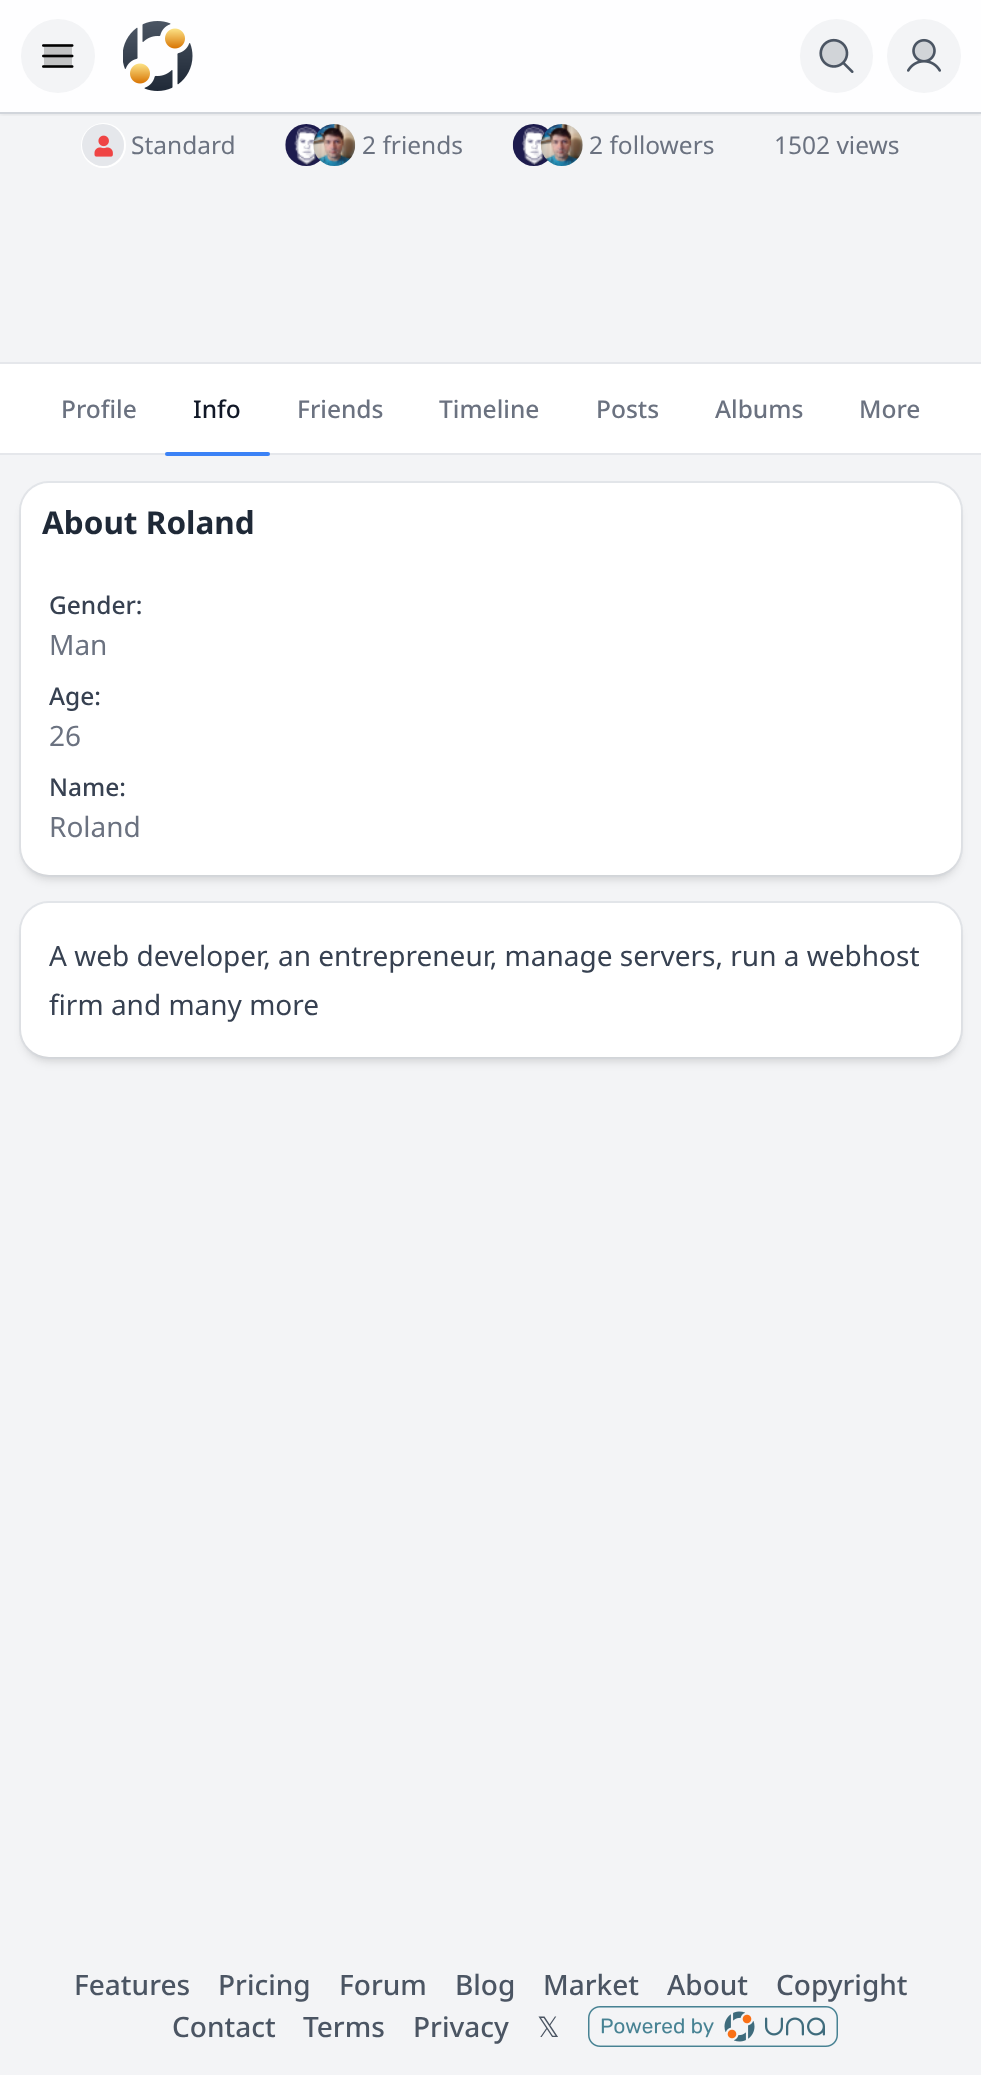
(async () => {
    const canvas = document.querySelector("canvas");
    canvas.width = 981;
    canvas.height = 2075;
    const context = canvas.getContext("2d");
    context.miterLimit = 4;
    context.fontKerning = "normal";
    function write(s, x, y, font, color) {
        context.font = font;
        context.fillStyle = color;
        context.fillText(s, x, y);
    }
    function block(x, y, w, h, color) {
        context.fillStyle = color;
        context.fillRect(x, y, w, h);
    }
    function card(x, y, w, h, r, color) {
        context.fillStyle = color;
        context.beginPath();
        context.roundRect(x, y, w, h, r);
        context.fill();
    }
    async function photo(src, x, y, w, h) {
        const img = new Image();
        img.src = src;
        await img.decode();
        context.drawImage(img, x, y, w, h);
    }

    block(0, 0, 981, 2075, "rgb(243, 244, 246)");
    block(0, 0, 981, 112, "rgb(254, 254, 255)");
    context.save();
    context.beginPath();
    context.rect(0, 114, 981, 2);
    context.clip();
    context.fillStyle = "rgba(0, 0, 0, 0.1)";
    context.filter = "blur(2.5px)";
    context.beginPath();
    context.rect(0, 2, 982, 112);
    context.fill();
    context.filter = "none";
    context.restore();
    context.strokeStyle = "rgb(209, 213, 219)";
    context.lineWidth = 2;
    context.strokeRect(-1, -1, 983, 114);
    context.fillStyle = "rgb(243, 244, 246)";
    context.beginPath();
    context.arc(58, 56, 37, 0, Math.PI * 2);
    context.fill();
    await photo("media/1.png", 42, 44, 32, 24);
    await photo("media/2.png", 123, 21, 70, 70);
    card(800, 19, 73, 74, 36.5, "rgb(243, 244, 246)");
    await photo("media/3.png", 819, 38, 35, 35);
    context.beginPath();
    context.arc(924, 56, 37, 0, Math.PI * 2);
    context.fill();
    await photo("media/4.png", 907, 38, 34, 34);
    context.beginPath();
    context.arc(103.5, 145.5, 21.5, 0, Math.PI * 2);
    context.strokeStyle = "rgb(255, 255, 255)";
    context.stroke();
    context.fillStyle = "rgb(229, 231, 235)";
    context.beginPath();
    context.arc(103, 145, 21, 0, Math.PI * 2);
    context.fill();
    await photo("media/5.png", 94, 135, 19, 22);
    write("Standard", 131, 154, "24.5px Noto Sans", "rgb(107, 114, 128)");
    await photo("media/6.png", 285, 124, 36, 42);
    await photo("media/7.png", 313, 124, 43, 42);
    write("2 friends", 362, 154, "24.5px Noto Sans", "rgb(107, 114, 128)");
    await photo("media/8.png", 512, 124, 37, 42);
    await photo("media/9.png", 540, 124, 43, 42);
    write("2 followers", 589, 154, "24.5px Noto Sans", "rgb(107, 114, 128)");
    write("1502 views", 774, 154, "24.5px Noto Sans", "rgb(107, 114, 128)");
    block(0, 362, 981, 2, "rgb(229, 231, 235)");
    block(0, 364, 981, 89, "rgb(255, 255, 255)");
    block(0, 453, 981, 2, "rgb(229, 231, 235)");
    write("Profile", 61, 418, "500 24.5px Noto Sans", "rgb(107, 114, 128)");
    write("Info", 193, 418, "500 24.5px Noto Sans", "rgb(17, 24, 39)");
    card(165, 452, 105, 4, 2, "rgb(59, 130, 246)");
    write("Friends", 297, 418, "500 24.5px Noto Sans", "rgb(107, 114, 128)");
    write("Timeline", 439, 418, "500 24.5px Noto Sans", "rgb(107, 114, 128)");
    write("Posts", 596, 418, "500 24.5px Noto Sans", "rgb(107, 114, 128)");
    write("Albums", 715, 418, "500 24.5px Noto Sans", "rgb(107, 114, 128)");
    write("More", 859, 418, "500 24.5px Noto Sans", "rgb(107, 114, 128)");
    context.fillStyle = "rgba(0, 0, 0, 0.1)";
    context.filter = "blur(3.5px)";
    context.beginPath();
    context.roundRect(25, 490, 932, 385, 25);
    context.fill();
    context.filter = "none";
    context.filter = "blur(5px)";
    context.beginPath();
    context.roundRect(23, 492, 936, 388, 26);
    context.fill();
    context.filter = "none";
    context.beginPath();
    context.roundRect(20, 482, 942, 394, 29);
    context.strokeStyle = "rgba(209, 213, 219, 0.5)";
    context.stroke();
    card(21, 483, 940, 392, 28, "rgb(255, 255, 255)");
    write("About Roland", 42, 534, "bold 31.5px Noto Sans", "rgb(31, 41, 55)");
    write("Gender:", 49, 614, "500 24.5px Noto Sans", "rgb(55, 65, 81)");
    write("Man", 49, 655, "28px Noto Sans", "rgb(107, 114, 128)");
    write("Age:", 49, 705, "500 24.5px Noto Sans", "rgb(55, 65, 81)");
    write("26", 49, 746, "28px Noto Sans", "rgb(107, 114, 128)");
    write("Name:", 49, 796, "500 24.5px Noto Sans", "rgb(55, 65, 81)");
    write("Roland", 49, 837, "28px Noto Sans", "rgb(107, 114, 128)");
    context.fillStyle = "rgba(0, 0, 0, 0.1)";
    context.filter = "blur(3.5px)";
    context.beginPath();
    context.roundRect(25, 910, 932, 147, 25);
    context.fill();
    context.filter = "none";
    context.filter = "blur(5px)";
    context.beginPath();
    context.roundRect(23, 912, 936, 150, 26);
    context.fill();
    context.filter = "none";
    context.beginPath();
    context.roundRect(20, 902, 942, 156, 29);
    context.stroke();
    card(21, 903, 940, 154, 28, "rgb(255, 255, 255)");
    write("A web developer, an entrepreneur, manage servers, run a webhost", 49, 966, "28px Noto Sans", "rgb(55, 65, 81)");
    write("firm and many more", 49, 1015, "28px Noto Sans", "rgb(55, 65, 81)");
    write("Features", 74, 1995, "500 28px Noto Sans", "rgb(75, 85, 99)");
    write("Pricing", 218, 1995, "500 28px Noto Sans", "rgb(75, 85, 99)");
    write("Forum", 339, 1995, "500 28px Noto Sans", "rgb(75, 85, 99)");
    write("Blog", 455, 1995, "500 28px Noto Sans", "rgb(75, 85, 99)");
    write("Market", 543, 1995, "500 28px Noto Sans", "rgb(75, 85, 99)");
    write("About", 667, 1995, "500 28px Noto Sans", "rgb(75, 85, 99)");
    write("Copyright", 776, 1995, "500 28px Noto Sans", "rgb(75, 85, 99)");
    write("Contact", 172, 2037, "500 28px Noto Sans", "rgb(75, 85, 99)");
    write("Terms", 303, 2037, "500 28px Noto Sans", "rgb(75, 85, 99)");
    write("Privacy", 413, 2037, "500 28px Noto Sans", "rgb(75, 85, 99)");
    write("𝕏", 537, 2037, "28px DejaVu Sans", "rgb(75, 85, 99)");
    await photo("media/10.png", 588, 2006, 250, 41);
})();
